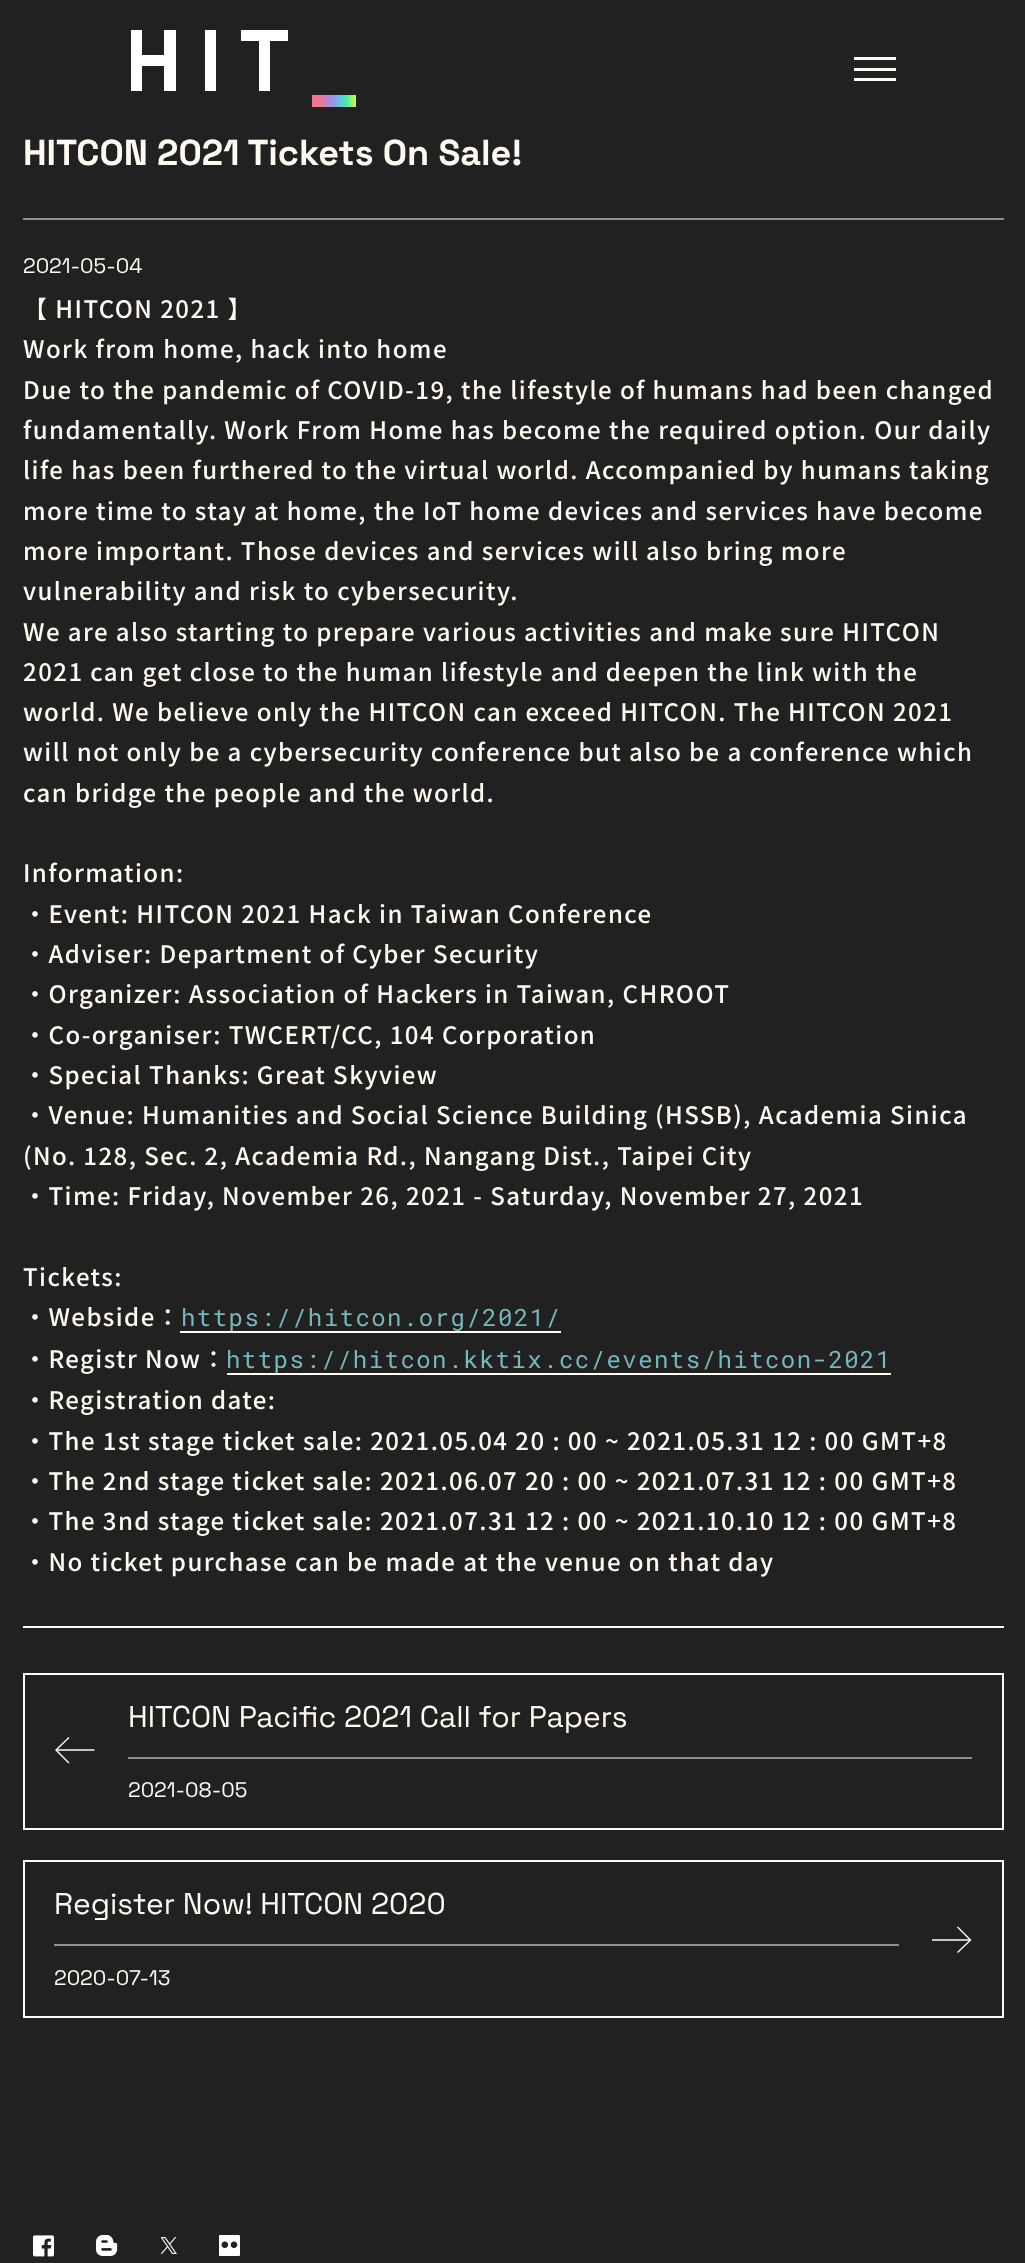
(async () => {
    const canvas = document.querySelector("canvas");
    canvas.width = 1025;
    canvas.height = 2263;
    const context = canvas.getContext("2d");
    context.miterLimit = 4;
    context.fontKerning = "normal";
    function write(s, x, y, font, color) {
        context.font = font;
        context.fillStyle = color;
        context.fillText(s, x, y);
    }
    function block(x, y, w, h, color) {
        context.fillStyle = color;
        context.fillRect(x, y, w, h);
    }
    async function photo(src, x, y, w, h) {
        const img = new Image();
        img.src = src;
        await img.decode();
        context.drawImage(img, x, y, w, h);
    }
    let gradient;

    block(0, 0, 1025, 2263, "rgb(33, 33, 33)");
    context.save();
    context.beginPath();
    context.rect(131, 30, 225, 77);
    context.clip();
    context.fillStyle = "rgb(255, 255, 255)";
    context.beginPath();
    context.moveTo(164, 55);
    context.lineTo(142, 55);
    context.lineTo(142, 30);
    context.lineTo(130, 30);
    context.lineTo(130, 91);
    context.lineTo(142, 91);
    context.lineTo(142, 66);
    context.lineTo(164, 66);
    context.lineTo(164, 91);
    context.lineTo(176, 91);
    context.lineTo(176, 30);
    context.lineTo(164, 30);
    context.closePath();
    context.moveTo(205, 91);
    context.lineTo(216, 91);
    context.lineTo(216, 30);
    context.lineTo(205, 30);
    context.closePath();
    context.moveTo(241, 41);
    context.lineTo(259, 41);
    context.lineTo(259, 91);
    context.lineTo(270, 91);
    context.lineTo(270, 41);
    context.lineTo(288, 41);
    context.lineTo(288, 30);
    context.lineTo(241, 30);
    context.closePath();
    context.moveTo(313, 95);
    context.lineTo(313, 105);
    context.lineTo(356, 105);
    context.lineTo(356, 95);
    context.closePath();
    context.fill();
    context.restore();
    gradient = context.createLinearGradient(312, 101, 356, 101);
    gradient.addColorStop(0.19, "rgb(234, 121, 146)");
    gradient.addColorStop(0.42, "rgb(169, 139, 229)");
    gradient.addColorStop(0.64, "rgb(108, 190, 225)");
    gradient.addColorStop(0.81, "rgb(78, 238, 168)");
    gradient.addColorStop(1, "rgb(218, 244, 78)");
    context.fillStyle = gradient;
    context.fillRect(312, 95, 44, 12);
    block(854, 68, 42, 3, "rgb(254, 250, 241)");
    block(854, 57, 42, 3, "rgb(254, 250, 241)");
    block(854, 78, 42, 3, "rgb(254, 250, 241)");
    block(23, 218, 981, 2, "rgb(144, 142, 137)");
    write("HITCON 2021 Tickets On Sale!", 23, 165, "bold 36px Space Grotesk", "rgb(254, 250, 241)");
    write("2021-05-04", 23, 273, "21px Space Grotesk", "rgb(254, 250, 241)");
    context.letterSpacing = "1.45px";
    write("【 HITCON 2021 】", 23, 318, "500 24px Noto Sans TC", "rgb(254, 250, 241)");
    write("Work from home, hack into home", 23, 358, "500 24px Noto Sans TC", "rgb(254, 250, 241)");
    write("Due to the pandemic of COVID-19, the lifestyle of humans had been changed", 23, 399, "500 24px Noto Sans TC", "rgb(254, 250, 241)");
    write("fundamentally. Work From Home has become the required option. Our daily", 23, 439, "500 24px Noto Sans TC", "rgb(254, 250, 241)");
    write("life has been furthered to the virtual world. Accompanied by humans taking", 23, 479, "500 24px Noto Sans TC", "rgb(254, 250, 241)");
    write("more time to stay at home, the IoT home devices and services have become", 23, 520, "500 24px Noto Sans TC", "rgb(254, 250, 241)");
    write("more important. Those devices and services will also bring more", 23, 560, "500 24px Noto Sans TC", "rgb(254, 250, 241)");
    write("vulnerability and risk to cybersecurity.", 23, 600, "500 24px Noto Sans TC", "rgb(254, 250, 241)");
    write("We are also starting to prepare various activities and make sure HITCON", 23, 641, "500 24px Noto Sans TC", "rgb(254, 250, 241)");
    write("2021 can get close to the human lifestyle and deepen the link with the", 23, 681, "500 24px Noto Sans TC", "rgb(254, 250, 241)");
    write("world. We believe only the HITCON can exceed HITCON. The HITCON 2021", 23, 721, "500 24px Noto Sans TC", "rgb(254, 250, 241)");
    write("will not only be a cybersecurity conference but also be a conference which", 23, 761, "500 24px Noto Sans TC", "rgb(254, 250, 241)");
    write("can bridge the people and the world.", 23, 802, "500 24px Noto Sans TC", "rgb(254, 250, 241)");
    write("Information:", 23, 882, "500 24px Noto Sans TC", "rgb(254, 250, 241)");
    write("・Event: HITCON 2021 Hack in Taiwan Conference", 23, 923, "500 24px Noto Sans TC", "rgb(254, 250, 241)");
    write("・Adviser: Department of Cyber Security", 23, 963, "500 24px Noto Sans TC", "rgb(254, 250, 241)");
    write("・Organizer: Association of Hackers in Taiwan, CHROOT", 23, 1003, "500 24px Noto Sans TC", "rgb(254, 250, 241)");
    write("・Co-organiser: TWCERT/CC, 104 Corporation", 23, 1044, "500 24px Noto Sans TC", "rgb(254, 250, 241)");
    write("・Special Thanks: Great Skyview", 23, 1084, "500 24px Noto Sans TC", "rgb(254, 250, 241)");
    write("・Venue: Humanities and Social Science Building (HSSB), Academia Sinica", 23, 1124, "500 24px Noto Sans TC", "rgb(254, 250, 241)");
    write("(No. 128, Sec. 2, Academia Rd., Nangang Dist., Taipei City", 23, 1165, "500 24px Noto Sans TC", "rgb(254, 250, 241)");
    write("・Time: Friday, November 26, 2021 - Saturday, November 27, 2021", 23, 1205, "500 24px Noto Sans TC", "rgb(254, 250, 241)");
    write("Tickets:", 23, 1286, "500 24px Noto Sans TC", "rgb(254, 250, 241)");
    write("・Webside：", 23, 1326, "500 24px Noto Sans TC", "rgb(254, 250, 241)");
    write("https://hitcon.org/2021/", 181, 1326, "24px Roboto Mono", "rgb(121, 182, 189)");
    block(180, 1331, 381, 2, "rgb(254, 250, 241)");
    write("・Registr Now：", 23, 1368, "500 24px Noto Sans TC", "rgb(254, 250, 241)");
    write("https://hitcon.kktix.cc/events/hitcon-2021", 226, 1368, "24px Roboto Mono", "rgb(121, 182, 189)");
    block(227, 1373, 664, 2, "rgb(254, 250, 241)");
    write("・Registration date:", 23, 1409, "500 24px Noto Sans TC", "rgb(254, 250, 241)");
    write("・The 1st stage ticket sale: 2021.05.04 20 : 00 ~ 2021.05.31 12 : 00 GMT+8", 23, 1450, "500 24px Noto Sans TC", "rgb(254, 250, 241)");
    write("・The 2nd stage ticket sale: 2021.06.07 20 : 00 ~ 2021.07.31 12 : 00 GMT+8", 23, 1490, "500 24px Noto Sans TC", "rgb(254, 250, 241)");
    write("・The 3nd stage ticket sale: 2021.07.31 12 : 00 ~ 2021.10.10 12 : 00 GMT+8", 23, 1530, "500 24px Noto Sans TC", "rgb(254, 250, 241)");
    write("・No ticket purchase can be made at the venue on that day", 23, 1571, "500 24px Noto Sans TC", "rgb(254, 250, 241)");
    block(23, 1626, 981, 2, "rgb(254, 250, 241)");
    context.strokeStyle = "rgb(254, 250, 241)";
    context.lineWidth = 2;
    context.strokeRect(24, 1674, 979, 155);
    context.beginPath();
    context.moveTo(94.5, 1750);
    context.lineTo(56, 1750);
    context.lineWidth = 1.4;
    context.stroke();
    context.beginPath();
    context.moveTo(68.5, 1762.5);
    context.lineTo(56, 1750);
    context.lineTo(68.5, 1738);
    context.lineCap = "square";
    context.stroke();
    block(128, 1757, 844, 2, "rgb(144, 142, 137)");
    context.letterSpacing = "0px";
    write("HITCON Pacific 2021 Call for Papers", 128, 1727, "30px Space Grotesk", "rgb(254, 250, 241)");
    write("2021-08-05", 128, 1797, "21px Space Grotesk", "rgb(254, 250, 241)");
    context.lineWidth = 2;
    context.strokeRect(24, 1861, 979, 156);
    block(54, 1944, 845, 2, "rgb(144, 142, 137)");
    write("Register Now! HITCON 2020", 54, 1914, "30px Space Grotesk", "rgb(254, 250, 241)");
    write("2020-07-13", 54, 1985, "21px Space Grotesk", "rgb(254, 250, 241)");
    context.beginPath();
    context.moveTo(932, 1940);
    context.lineTo(970.5, 1940);
    context.lineWidth = 1.4;
    context.lineCap = "butt";
    context.stroke();
    context.beginPath();
    context.moveTo(958, 1927.5);
    context.lineTo(970.5, 1940);
    context.lineTo(958, 1952);
    context.lineCap = "square";
    context.stroke();
    await photo("media/1.png", 33, 2235, 21, 22);
    await photo("media/2.png", 96, 2235, 22, 21);
    await photo("media/3.png", 161, 2237, 16, 17);
    await photo("media/4.png", 219, 2235, 21, 21);
})();
